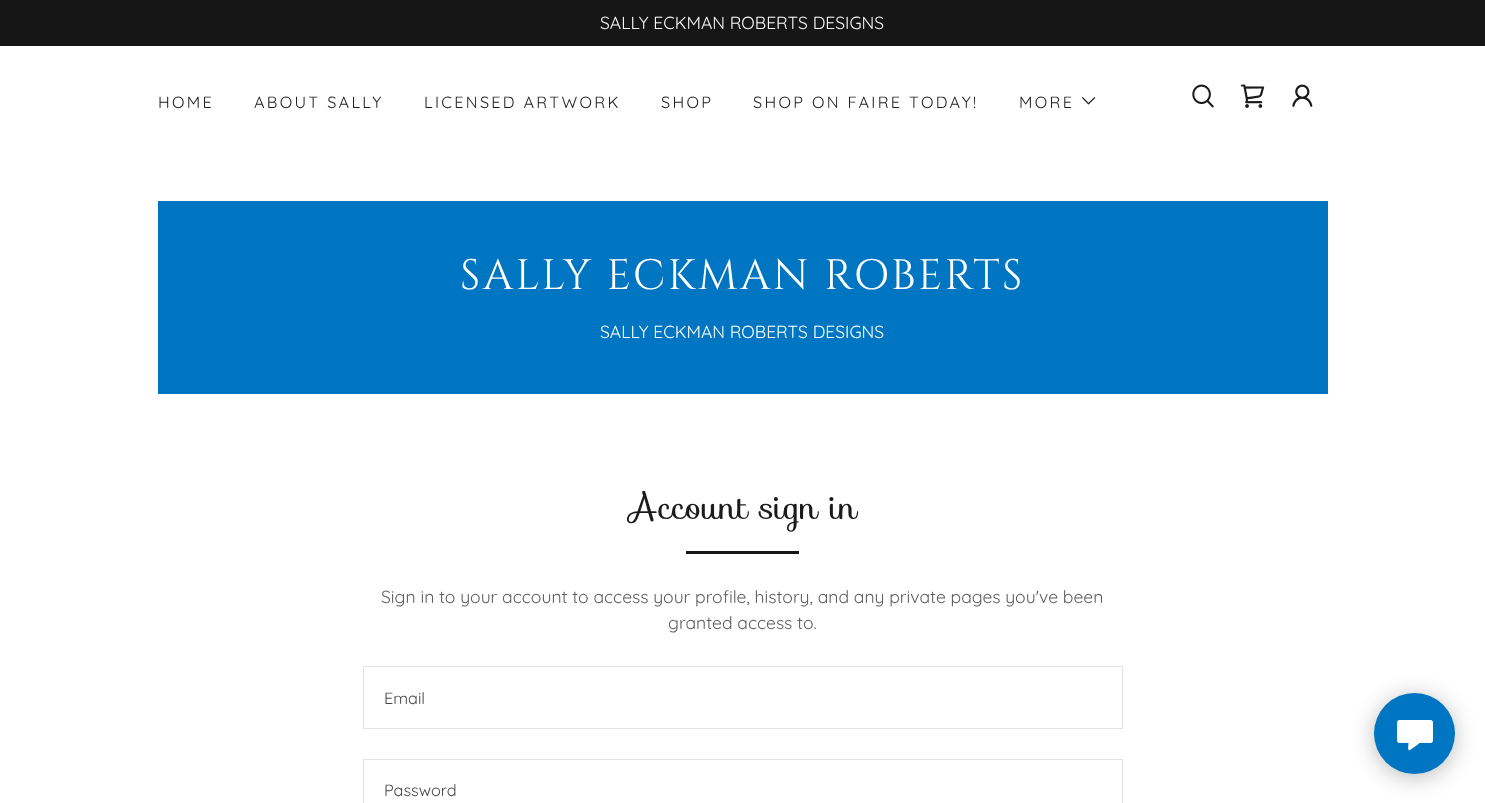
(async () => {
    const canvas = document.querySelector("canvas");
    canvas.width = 1485;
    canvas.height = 803;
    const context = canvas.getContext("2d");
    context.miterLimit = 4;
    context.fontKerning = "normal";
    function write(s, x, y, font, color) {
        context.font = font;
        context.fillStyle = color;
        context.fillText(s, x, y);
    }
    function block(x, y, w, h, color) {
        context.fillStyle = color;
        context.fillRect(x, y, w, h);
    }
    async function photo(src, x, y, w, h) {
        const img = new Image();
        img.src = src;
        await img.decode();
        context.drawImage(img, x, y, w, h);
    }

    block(0, 0, 1485, 803, "rgb(255, 255, 255)");
    block(0, 0, 1485, 46, "rgb(22, 22, 22)");
    write("SALLY ECKMAN ROBERTS DESIGNS", 600, 29, "17.5px Quicksand", "rgb(247, 247, 247)");
    context.letterSpacing = "2.3px";
    write("HOME", 158, 108, "16.25px Quicksand", "rgb(27, 27, 27)");
    write("ABOUT SALLY", 254, 108, "16.25px Quicksand", "rgb(27, 27, 27)");
    write("LICENSED ARTWORK", 424, 108, "16.25px Quicksand", "rgb(27, 27, 27)");
    write("SHOP", 661, 108, "16.25px Quicksand", "rgb(27, 27, 27)");
    write("SHOP ON FAIRE TODAY!", 753, 108, "16.25px Quicksand", "rgb(27, 27, 27)");
    write("MORE", 1019, 108, "16.25px Quicksand", "rgb(27, 27, 27)");
    await photo("media/1.png", 1082, 97, 14, 8);
    await photo("media/2.png", 1192, 84, 22, 24);
    await photo("media/3.png", 1240, 84, 25, 24);
    await photo("media/4.png", 1292, 84, 21, 23);
    block(158, 201, 1170, 193, "rgb(0, 117, 193)");
    context.letterSpacing = "2.5px";
    write("SALLY ECKMAN ROBERTS", 460, 289, "42.5px Cinzel", "rgb(255, 255, 255)");
    context.letterSpacing = "0px";
    write("SALLY ECKMAN ROBERTS DESIGNS", 600, 338, "17.5px Quicksand", "rgb(255, 255, 255)");
    write("Account sign in", 629, 519, "33.75px Sofia", "rgb(27, 27, 27)");
    block(686, 551, 113, 3, "rgb(22, 22, 22)");
    write("Sign in to your account to access your profile, history, and any private pages you've been", 381, 603, "17.5px Quicksand", "rgb(94, 94, 94)");
    write("granted access to.", 668, 629, "17.5px Quicksand", "rgb(94, 94, 94)");
    context.strokeStyle = "rgb(226, 226, 226)";
    context.strokeRect(363.5, 666.5, 759, 62);
    write("Email", 384, 704, "16.25px Quicksand", "rgb(71, 71, 71)");
    context.strokeRect(363.5, 759.5, 759, 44);
    write("Password", 384, 796, "16.25px Quicksand", "rgb(71, 71, 71)");
    context.fillStyle = "rgba(0, 0, 0, 0.25)";
    context.filter = "blur(11px)";
    context.beginPath();
    context.roundRect(1374, 696, 81, 82, 40.5);
    context.fill();
    context.filter = "none";
    context.fillStyle = "rgb(0, 117, 193)";
    context.beginPath();
    context.arc(1414.5, 733.5, 40.5, 0, Math.PI * 2);
    context.fill();
    await photo("media/5.png", 1397, 720, 36, 31);
})();
